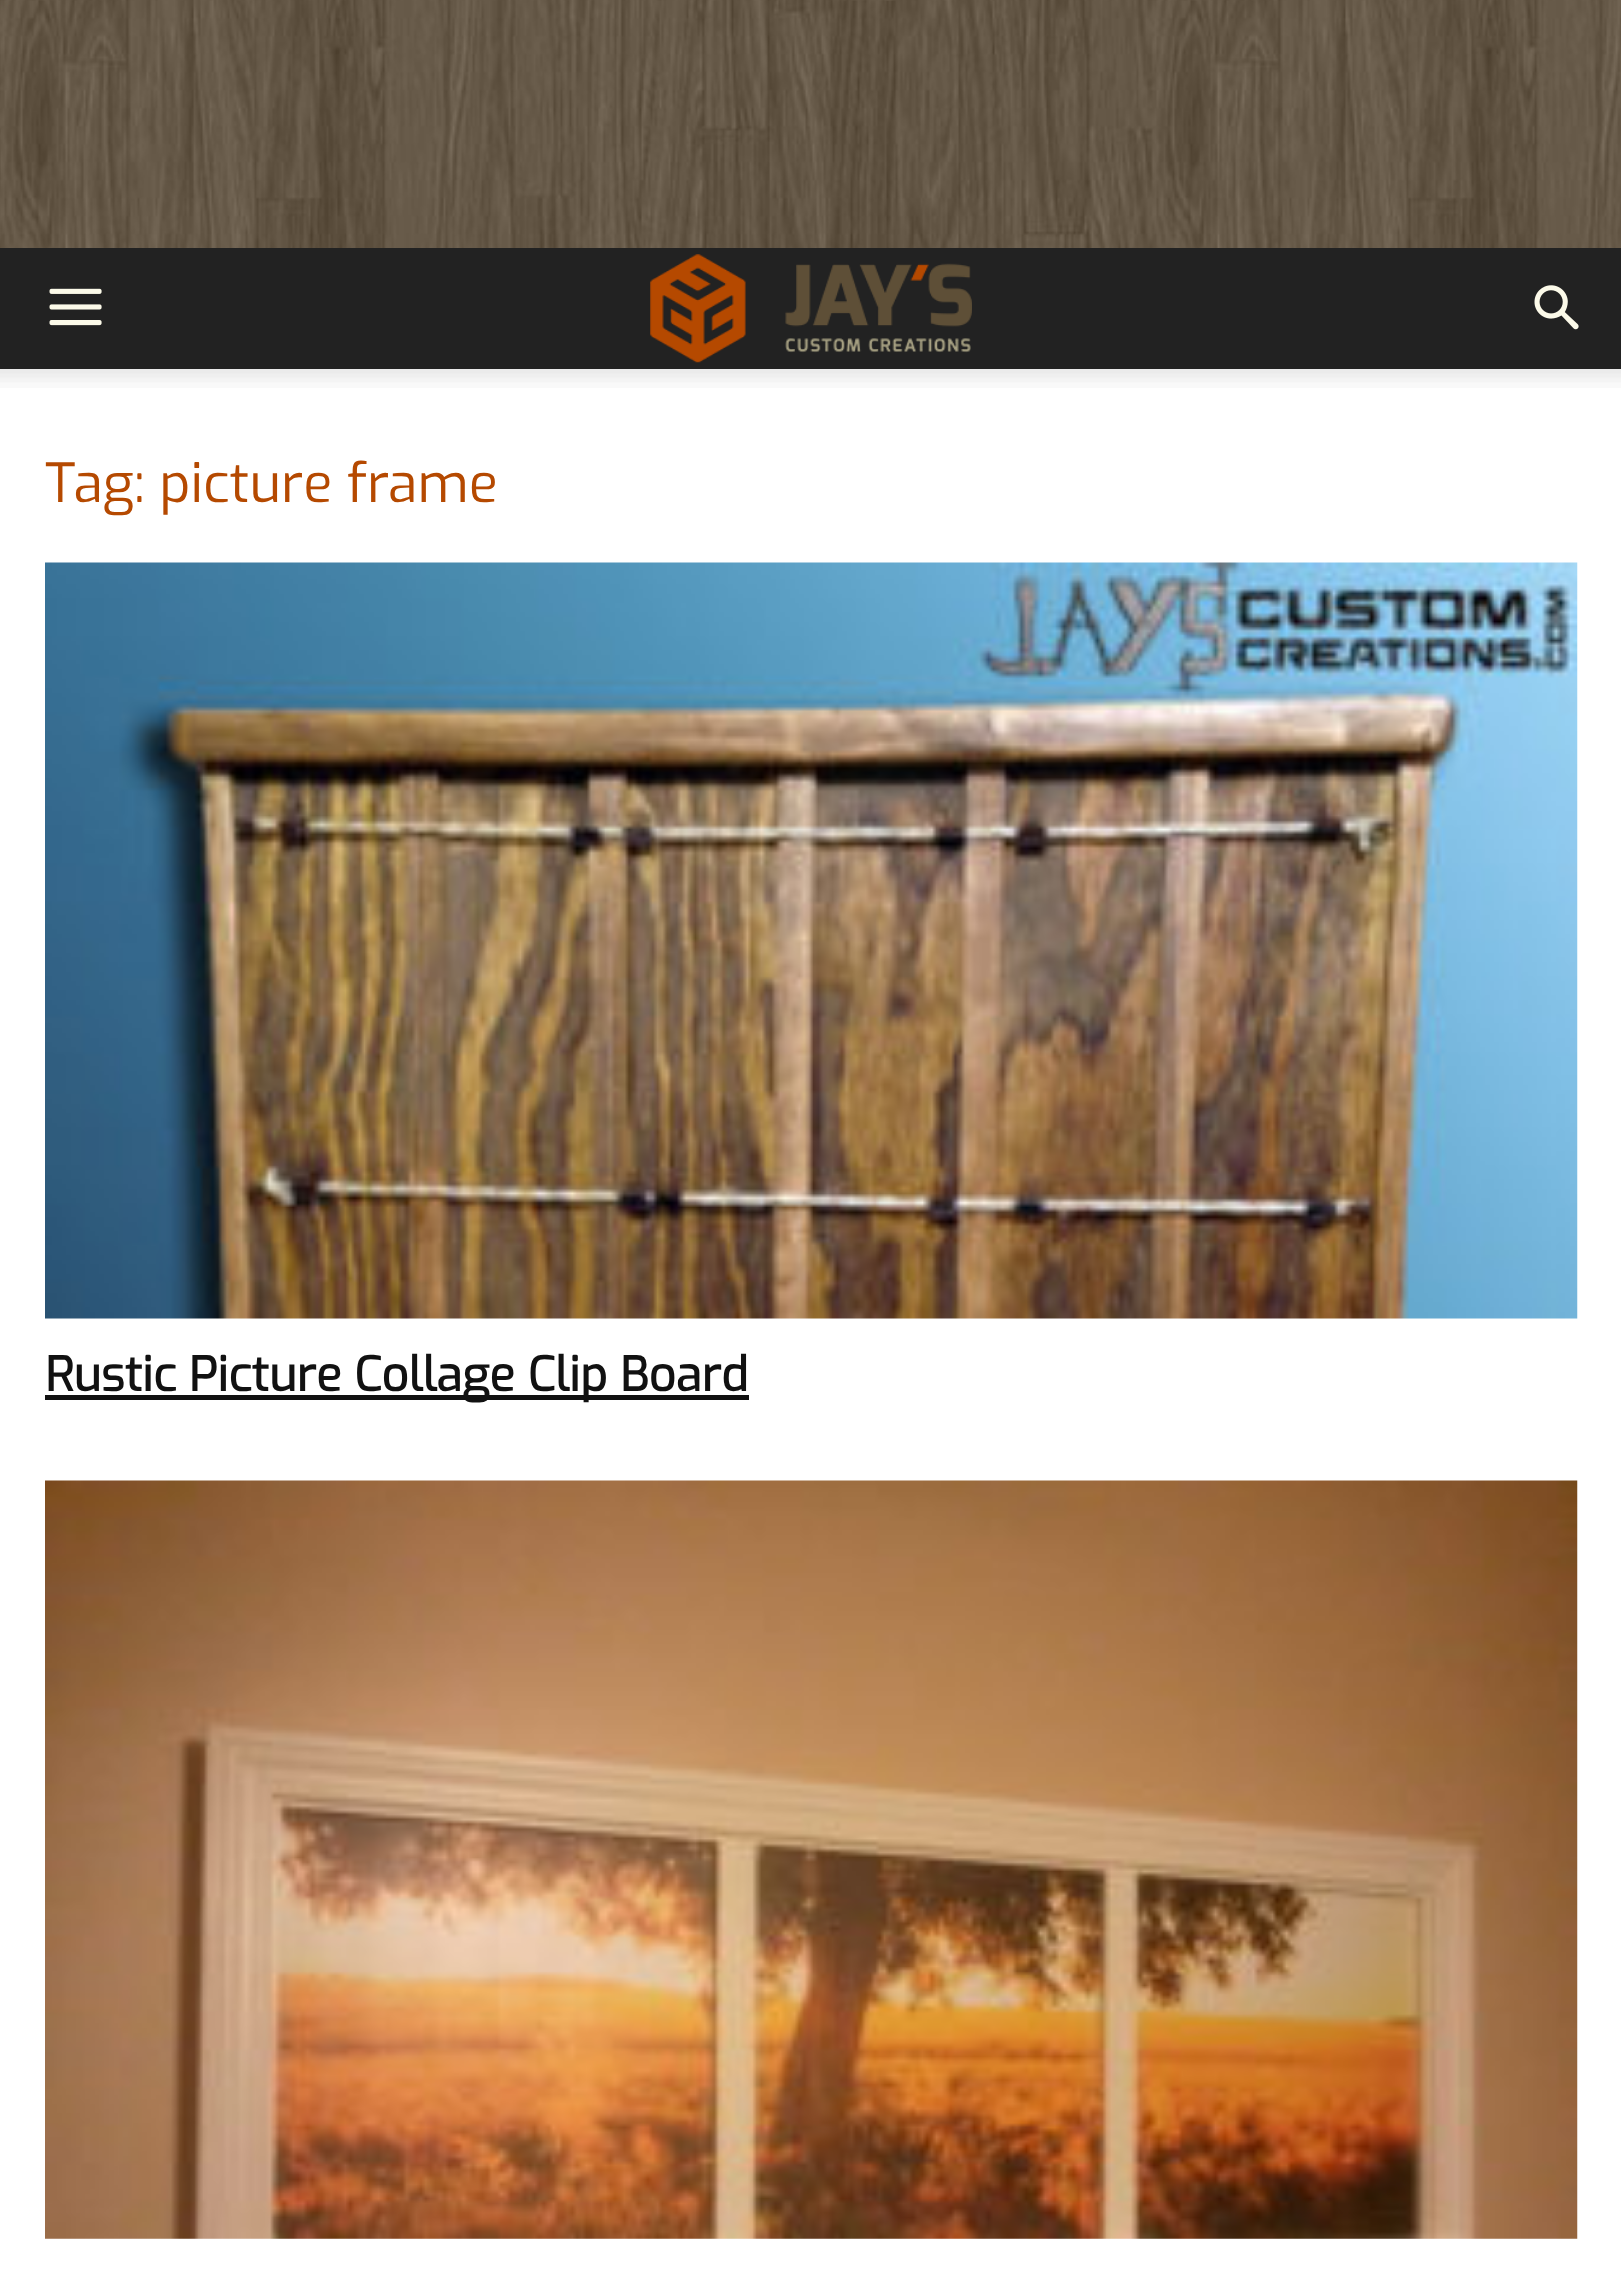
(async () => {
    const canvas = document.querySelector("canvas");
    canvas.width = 1621;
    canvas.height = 2271;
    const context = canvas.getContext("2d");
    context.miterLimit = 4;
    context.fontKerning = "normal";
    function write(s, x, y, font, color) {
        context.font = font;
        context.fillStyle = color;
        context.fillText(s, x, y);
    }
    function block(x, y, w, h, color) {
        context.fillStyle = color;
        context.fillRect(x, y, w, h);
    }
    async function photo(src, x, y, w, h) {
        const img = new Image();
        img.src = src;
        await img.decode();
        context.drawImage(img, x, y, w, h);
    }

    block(0, 0, 1621, 2271, "rgb(255, 255, 255)");
    await photo("media/1.png", 0, 0, 1621, 248);
    block(0, 248, 1621, 121, "rgb(34, 34, 34)");
    await photo("media/2.png", 49, 288, 53, 38);
    await photo("media/3.png", 650, 254, 322, 109);
    await photo("media/4.png", 1534, 285, 45, 45);
    await photo("media/5.png", 0, 369, 1621, 19);
    write("Tag: picture frame", 45, 502, "54px Exo", "rgb(181, 73, 0)");
    await photo("media/6.png", 45, 562, 1533, 757);
    block(45, 1395, 704, 5, "rgb(17, 17, 17)");
    write("Rustic Picture Collage Clip Board", 45, 1391, "bold 47.25px Exo", "rgb(17, 17, 17)");
    await photo("media/7.png", 45, 1480, 1533, 759);
})();
